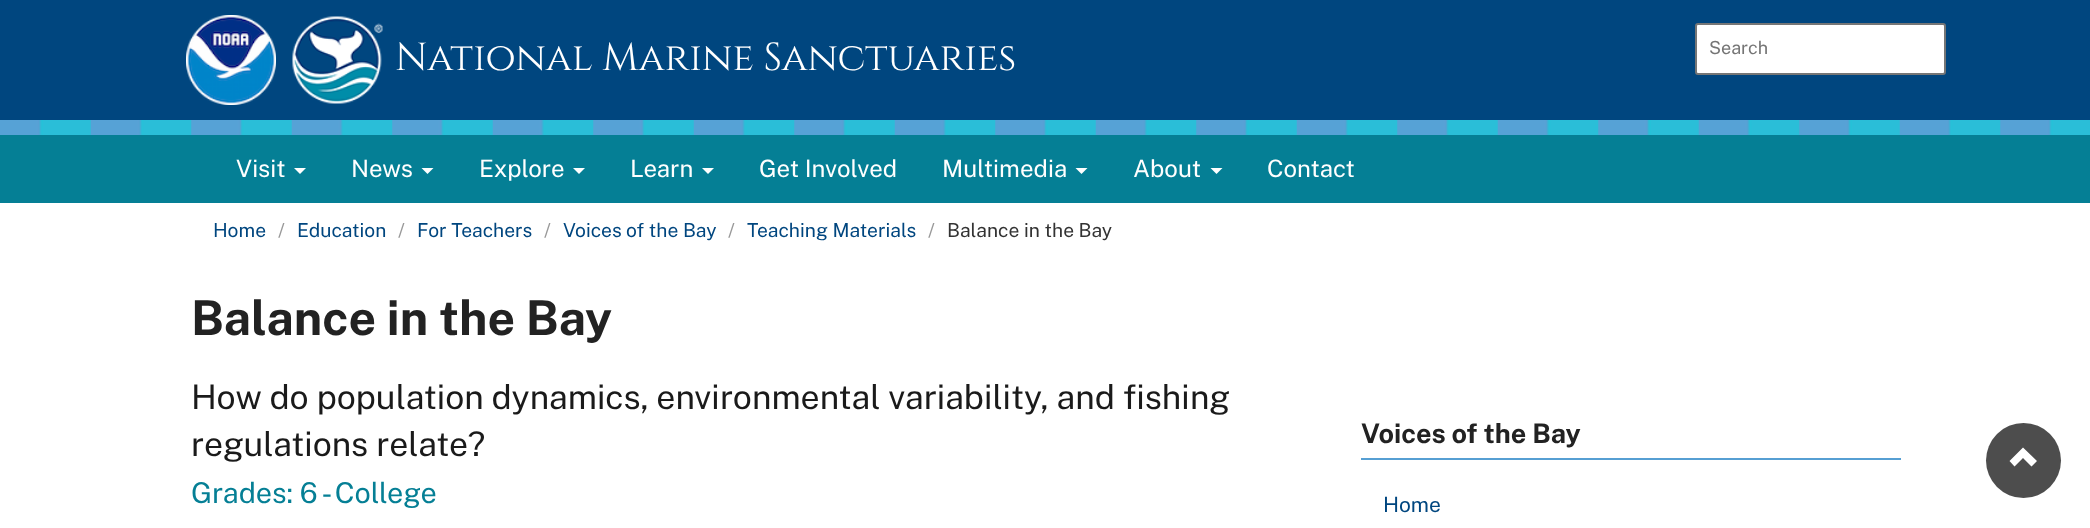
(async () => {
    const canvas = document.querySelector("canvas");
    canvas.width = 2090;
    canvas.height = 528;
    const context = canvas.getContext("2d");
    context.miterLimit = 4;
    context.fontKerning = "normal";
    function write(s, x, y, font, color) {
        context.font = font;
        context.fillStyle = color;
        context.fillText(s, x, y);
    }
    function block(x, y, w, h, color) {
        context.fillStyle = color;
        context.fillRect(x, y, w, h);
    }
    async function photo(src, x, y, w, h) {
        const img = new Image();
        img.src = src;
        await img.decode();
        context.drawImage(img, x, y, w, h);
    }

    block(0, 0, 2090, 528, "rgb(255, 255, 255)");
    block(0, 0, 2090, 120, "rgb(0, 70, 127)");
    await photo("media/1.png", 186, 15, 90, 90);
    await photo("media/2.png", 292, 16, 91, 88);
    write("National Marine Sanctuaries", 395, 70, "39px Cinzel", "rgb(255, 255, 255)");
    context.beginPath();
    context.roundRect(1696, 24, 249, 50, 2);
    context.fill();
    context.strokeStyle = "rgb(118, 118, 118)";
    context.lineWidth = 2;
    context.stroke();
    write("Search", 1709, 54, "18px Public Sans", "rgb(117, 117, 117)");
    block(0, 135, 2090, 68, "rgb(5, 127, 149)");
    await photo("media/3.png", 0, 120, 2090, 15);
    write("Visit", 236, 177, "24px Public Sans", "rgb(255, 255, 255)");
    context.beginPath();
    context.moveTo(294, 168);
    context.lineTo(306, 168);
    context.lineTo(300, 174);
    context.closePath();
    context.fill();
    write("News", 351, 177, "24px Public Sans", "rgb(255, 255, 255)");
    context.beginPath();
    context.moveTo(421.5, 168);
    context.lineTo(433.5, 168);
    context.lineTo(427.5, 174);
    context.closePath();
    context.fill();
    write("Explore", 479, 177, "24px Public Sans", "rgb(255, 255, 255)");
    context.beginPath();
    context.moveTo(573, 168);
    context.lineTo(585, 168);
    context.lineTo(579, 174);
    context.closePath();
    context.fill();
    write("Learn", 630, 177, "24px Public Sans", "rgb(255, 255, 255)");
    context.beginPath();
    context.moveTo(702, 168);
    context.lineTo(714, 168);
    context.lineTo(708, 174);
    context.closePath();
    context.fill();
    write("Get Involved", 759, 177, "24px Public Sans", "rgb(255, 255, 255)");
    write("Multimedia", 942, 177, "24px Public Sans", "rgb(255, 255, 255)");
    context.beginPath();
    context.moveTo(1075.5, 168);
    context.lineTo(1087.5, 168);
    context.lineTo(1081.5, 174);
    context.closePath();
    context.fill();
    write("About", 1133, 177, "24px Public Sans", "rgb(255, 255, 255)");
    context.beginPath();
    context.moveTo(1210.5, 168);
    context.lineTo(1222.5, 168);
    context.lineTo(1216.5, 174);
    context.closePath();
    context.fill();
    write("Contact", 1267, 177, "24px Public Sans", "rgb(255, 255, 255)");
    context.fillStyle = "rgb(77, 77, 77)";
    context.beginPath();
    context.arc(2023.5, 460.5, 37.5, 0, Math.PI * 2);
    context.fill();
    context.fillStyle = "rgb(255, 255, 255)";
    context.beginPath();
    context.moveTo(2009.5, 461);
    context.lineTo(2014.5, 466.5);
    context.lineTo(2023, 458);
    context.lineTo(2031.5, 466.5);
    context.lineTo(2037, 461);
    context.lineTo(2023, 447.5);
    context.closePath();
    context.fill();
    write("Home", 213, 237, "19.25px Public Sans", "rgb(0, 70, 127)");
    write("/", 278, 237, "19.25px Public Sans", "rgb(153, 153, 153)");
    write("Education", 297, 237, "19.25px Public Sans", "rgb(0, 70, 127)");
    write("/", 398, 237, "19.25px Public Sans", "rgb(153, 153, 153)");
    write("For Teachers", 417, 237, "19.25px Public Sans", "rgb(0, 70, 127)");
    write("/", 544, 237, "19.25px Public Sans", "rgb(153, 153, 153)");
    write("Voices of the Bay", 563, 237, "19.25px Public Sans", "rgb(0, 70, 127)");
    write("/", 728, 237, "19.25px Public Sans", "rgb(153, 153, 153)");
    write("Teaching Materials", 747, 237, "19.25px Public Sans", "rgb(0, 70, 127)");
    write("/", 928, 237, "19.25px Public Sans", "rgb(153, 153, 153)");
    write("Balance in the Bay", 947, 237, "19.25px Public Sans", "rgb(51, 51, 51)");
    write("Balance in the Bay", 191, 335, "bold 48px Public Sans", "rgb(34, 34, 34)");
    write("How do population dynamics, environmental variability, and fishing", 191, 409, "33.75px Public Sans", "rgb(26, 26, 26)");
    write("regulations relate?", 191, 456, "33.75px Public Sans", "rgb(26, 26, 26)");
    write("Grades: 6 - College", 191, 503, "28.75px Public Sans", "rgb(5, 127, 149)");
    block(1361, 458, 540, 2, "rgb(86, 159, 211)");
    write("Voices of the Bay", 1361, 443, "bold 27px Public Sans", "rgb(34, 34, 34)");
    write("Home", 1383, 512, "21px Public Sans", "rgb(0, 70, 127)");
})();
